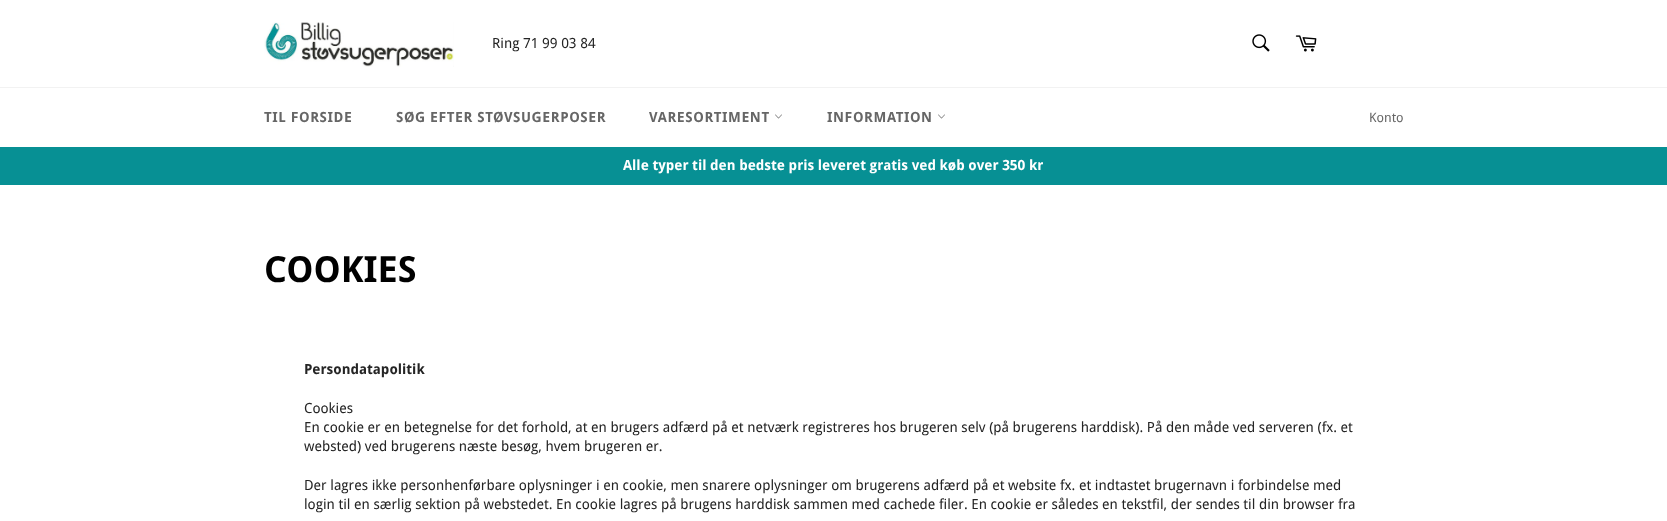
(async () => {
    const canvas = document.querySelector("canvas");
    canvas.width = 1667;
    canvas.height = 521;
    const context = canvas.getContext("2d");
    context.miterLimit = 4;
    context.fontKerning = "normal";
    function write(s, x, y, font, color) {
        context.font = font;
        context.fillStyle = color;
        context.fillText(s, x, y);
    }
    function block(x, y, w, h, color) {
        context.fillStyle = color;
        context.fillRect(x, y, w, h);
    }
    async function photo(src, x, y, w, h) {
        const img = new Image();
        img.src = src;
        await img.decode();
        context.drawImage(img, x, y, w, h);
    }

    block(0, 0, 1667, 521, "rgb(255, 255, 255)");
    await photo("media/1.png", 264, 22, 190, 45);
    write("Ring 71 99 03 84", 492, 48, "14px Droid Sans", "rgb(37, 37, 37)");
    await photo("media/2.png", 1252, 34, 18, 18);
    await photo("media/3.png", 1295, 35, 22, 17);
    block(0, 87, 1667, 1, "rgb(242, 242, 242)");
    context.letterSpacing = "0.6px";
    write("TIL FORSIDE", 264, 122, "bold 14px Droid Sans", "rgb(102, 102, 102)");
    write("SØG EFTER STØVSUGERPOSER", 396, 122, "bold 14px Droid Sans", "rgb(102, 102, 102)");
    write("VARESORTIMENT", 649, 122, "bold 14px Droid Sans", "rgb(102, 102, 102)");
    await photo("media/4.png", 775, 114, 7, 5);
    write("INFORMATION", 827, 122, "bold 14px Droid Sans", "rgb(102, 102, 102)");
    await photo("media/4.png", 938, 114, 7, 5);
    context.letterSpacing = "0px";
    write("Konto", 1369, 122, "13px Droid Sans", "rgb(102, 102, 102)");
    block(0, 147, 1667, 38, "rgb(7, 144, 148)");
    write("Alle typer til den bedste pris leveret gratis ved køb over 350 kr", 623, 170, "bold 14px Droid Sans", "rgb(255, 255, 255)");
    write("COOKIES", 264, 282, "bold 36px Droid Sans", "rgb(0, 0, 0)");
    write("Persondatapolitik", 304, 374, "bold 14px Droid Sans", "rgb(37, 37, 37)");
    write("Cookies", 304, 413, "14px Droid Sans", "rgb(37, 37, 37)");
    write("En cookie er en betegnelse for det forhold, at en brugers adfærd på et netværk registreres hos brugeren selv (på brugerens harddisk). På den måde ved serveren (fx. et", 304, 432, "14px Droid Sans", "rgb(37, 37, 37)");
    write("websted) ved brugerens næste besøg, hvem brugeren er.", 304, 451, "14px Droid Sans", "rgb(37, 37, 37)");
    write("Der lagres ikke personhenførbare oplysninger i en cookie, men snarere oplysninger om brugerens adfærd på et website fx. et indtastet brugernavn i forbindelse med", 304, 490, "14px Droid Sans", "rgb(37, 37, 37)");
    write("login til en særlig sektion på webstedet. En cookie lagres på brugens harddisk sammen med cachede filer. En cookie er således en tekstfil, der sendes til din browser fra", 304, 509, "14px Droid Sans", "rgb(37, 37, 37)");
})();
